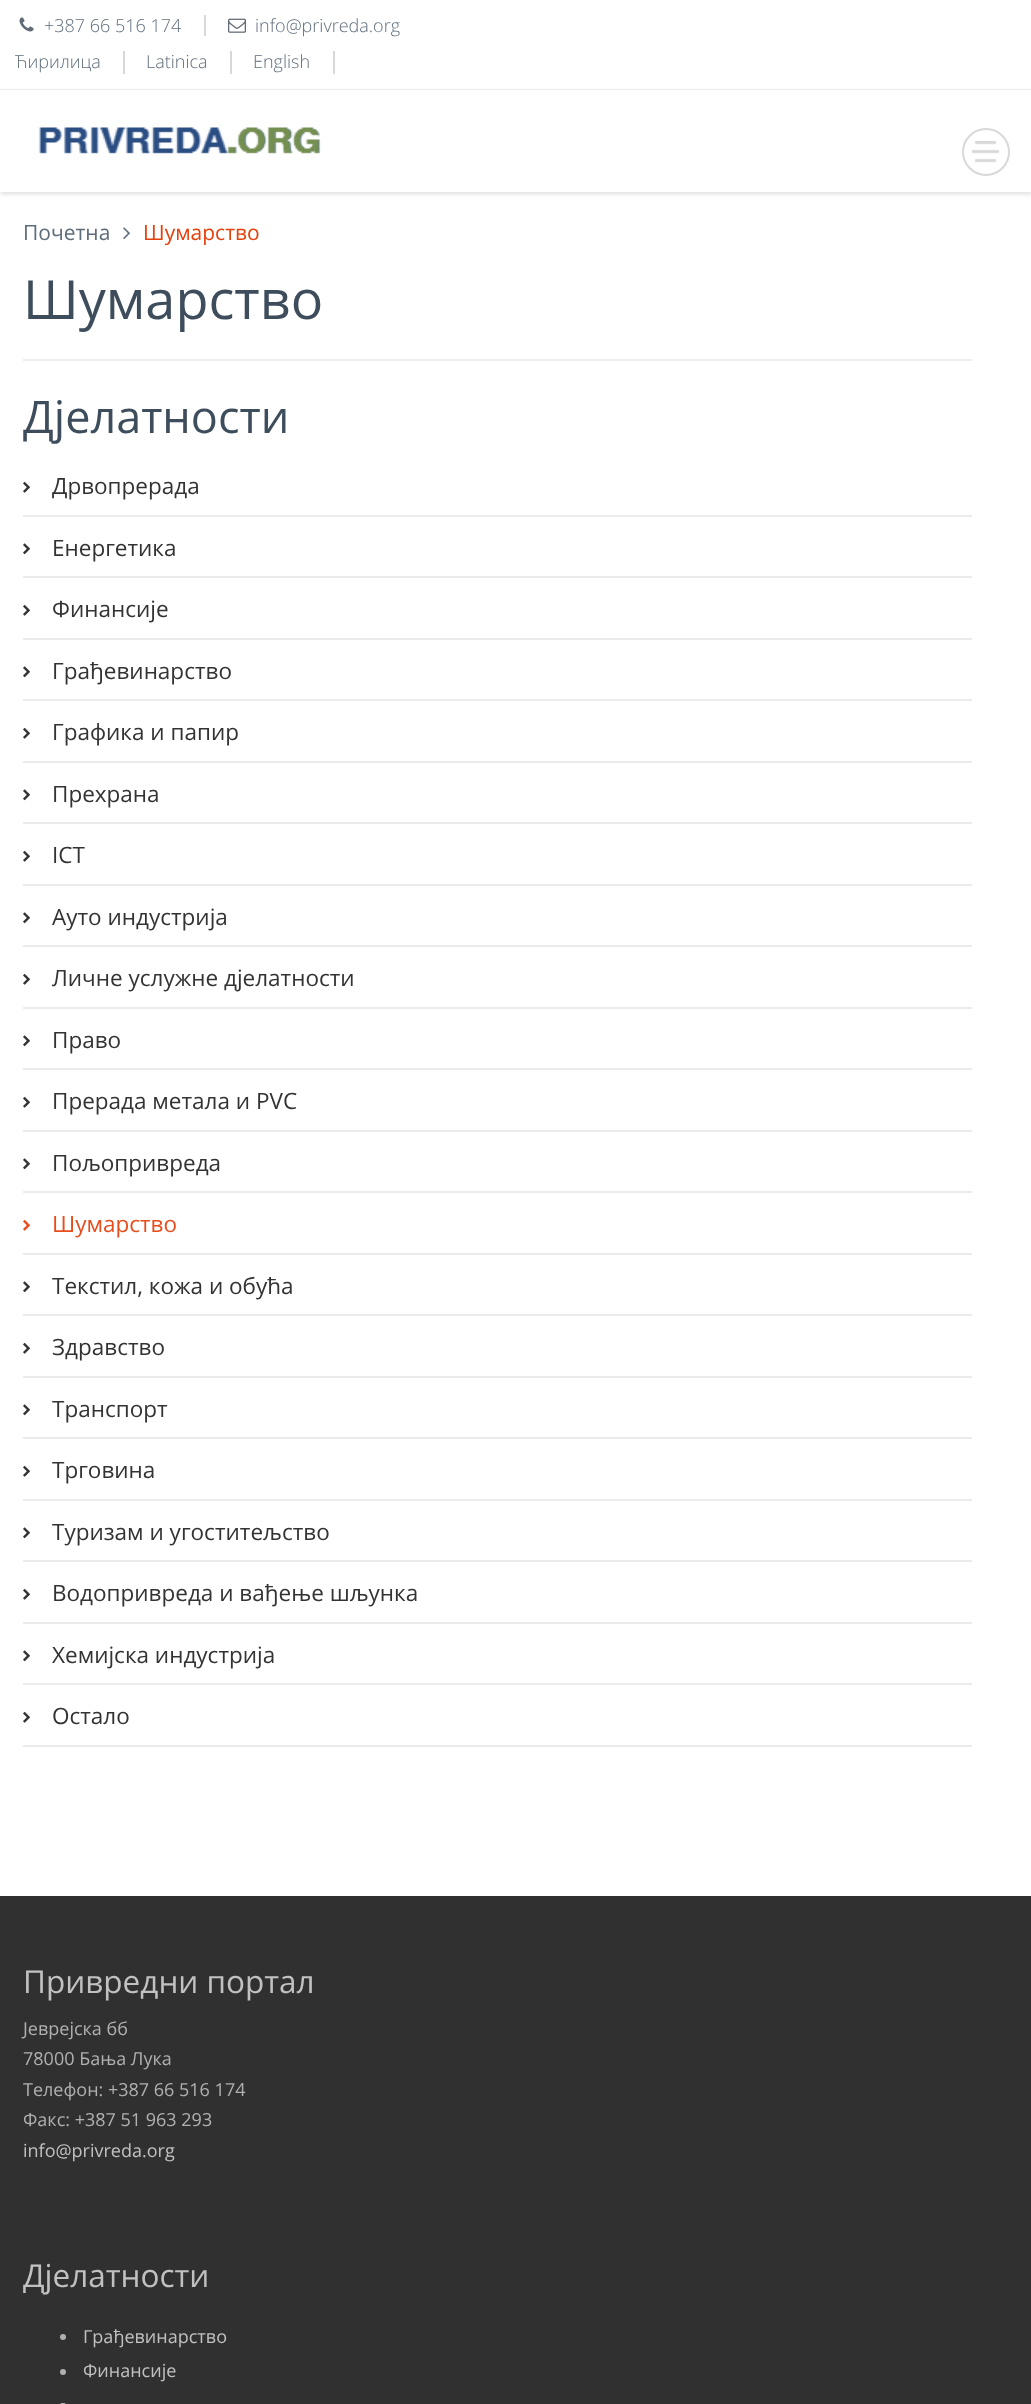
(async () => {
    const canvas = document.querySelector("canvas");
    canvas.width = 1031;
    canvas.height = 2404;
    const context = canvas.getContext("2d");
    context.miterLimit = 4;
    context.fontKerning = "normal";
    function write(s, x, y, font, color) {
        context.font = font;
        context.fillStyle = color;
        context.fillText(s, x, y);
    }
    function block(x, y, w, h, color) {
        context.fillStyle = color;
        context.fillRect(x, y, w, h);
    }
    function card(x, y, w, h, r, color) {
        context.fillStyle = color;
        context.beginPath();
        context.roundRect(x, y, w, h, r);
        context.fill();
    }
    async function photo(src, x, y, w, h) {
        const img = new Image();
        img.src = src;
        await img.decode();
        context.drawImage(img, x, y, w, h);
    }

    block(0, 0, 1031, 2404, "rgb(255, 255, 255)");
    block(0, 89, 1031, 1, "rgb(238, 238, 238)");
    block(204, 15, 2, 21, "rgb(216, 216, 216)");
    await photo("media/1.png", 19, 17, 15, 15);
    write("+387 66 516 174", 44, 32, "300 18px Open Sans", "rgb(95, 109, 123)");
    await photo("media/2.png", 228, 18, 18, 15);
    write("info@privreda.org", 255, 32, "300 18px Open Sans", "rgb(95, 109, 123)");
    block(123, 51, 2, 23, "rgb(216, 216, 216)");
    write("Ћирилица", 15, 68, "300 18px Open Sans", "rgb(95, 109, 123)");
    block(230, 51, 2, 23, "rgb(216, 216, 216)");
    write("Latinica", 146, 68, "300 18px Open Sans", "rgb(95, 109, 123)");
    block(333, 51, 2, 23, "rgb(216, 216, 216)");
    write("English", 253, 68, "300 18px Open Sans", "rgb(95, 109, 123)");
    context.fillStyle = "rgb(221, 221, 221)";
    context.filter = "blur(2px)";
    context.beginPath();
    context.rect(0, 92, 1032, 102);
    context.fill();
    context.filter = "none";
    block(0, 90, 1031, 102, "rgb(255, 255, 255)");
    await photo("media/3.png", 38, 127, 283, 27);
    await photo("media/4.png", 972, 141, 27, 22);
    context.beginPath();
    context.arc(986, 152, 23, 0, Math.PI * 2);
    context.strokeStyle = "rgb(216, 216, 216)";
    context.lineWidth = 2;
    context.stroke();
    write("Почетна", 23, 240, "21px Open Sans", "rgb(95, 109, 123)");
    await photo("media/5.png", 123, 227, 7, 12);
    write("Шумарство", 143, 240, "21px Open Sans", "rgb(230, 64, 12)");
    write("Шумарство", 23, 319, "54px Open Sans", "rgb(62, 77, 92)");
    block(23, 359, 949, 2, "rgb(238, 238, 238)");
    write("Дјелатности", 23, 433, "45px Open Sans", "rgb(62, 77, 92)");
    block(23, 515, 949, 2, "rgb(236, 235, 235)");
    await photo("media/6.png", 23, 481, 7, 12);
    write("Дрвопрерада", 52, 494, "22.5px Open Sans", "rgb(51, 51, 51)");
    block(23, 576, 949, 2, "rgb(236, 235, 235)");
    await photo("media/7.png", 23, 543, 7, 12);
    write("Енергетика", 52, 556, "22.5px Open Sans", "rgb(51, 51, 51)");
    block(23, 638, 949, 2, "rgb(236, 235, 235)");
    await photo("media/6.png", 23, 604, 7, 12);
    write("Финансије", 52, 617, "22.5px Open Sans", "rgb(51, 51, 51)");
    block(23, 699, 949, 2, "rgb(236, 235, 235)");
    await photo("media/7.png", 23, 666, 7, 12);
    write("Грађевинарство", 52, 679, "22.5px Open Sans", "rgb(51, 51, 51)");
    block(23, 761, 949, 2, "rgb(236, 235, 235)");
    await photo("media/6.png", 23, 727, 7, 12);
    write("Графика и папир", 52, 740, "22.5px Open Sans", "rgb(51, 51, 51)");
    block(23, 822, 949, 2, "rgb(236, 235, 235)");
    await photo("media/7.png", 23, 789, 7, 12);
    write("Прехрана", 52, 802, "22.5px Open Sans", "rgb(51, 51, 51)");
    block(23, 884, 949, 2, "rgb(236, 235, 235)");
    await photo("media/6.png", 23, 850, 7, 12);
    write("ICT", 52, 863, "22.5px Open Sans", "rgb(51, 51, 51)");
    block(23, 945, 949, 2, "rgb(236, 235, 235)");
    await photo("media/7.png", 23, 912, 7, 12);
    write("Ауто индустрија", 52, 925, "22.5px Open Sans", "rgb(51, 51, 51)");
    block(23, 1007, 949, 2, "rgb(236, 235, 235)");
    await photo("media/6.png", 23, 973, 7, 12);
    write("Личне услужне дјелатности", 52, 986, "22.5px Open Sans", "rgb(51, 51, 51)");
    block(23, 1068, 949, 2, "rgb(236, 235, 235)");
    await photo("media/7.png", 23, 1035, 7, 12);
    write("Право", 52, 1048, "22.5px Open Sans", "rgb(51, 51, 51)");
    block(23, 1130, 949, 2, "rgb(236, 235, 235)");
    await photo("media/6.png", 23, 1096, 7, 12);
    write("Прерада метала и PVC", 52, 1109, "22.5px Open Sans", "rgb(51, 51, 51)");
    block(23, 1191, 949, 2, "rgb(236, 235, 235)");
    await photo("media/7.png", 23, 1158, 7, 12);
    write("Пољопривреда", 52, 1171, "22.5px Open Sans", "rgb(51, 51, 51)");
    block(23, 1253, 949, 2, "rgb(236, 235, 235)");
    await photo("media/8.png", 23, 1219, 7, 12);
    write("Шумарство", 52, 1232, "22.5px Open Sans", "rgb(232, 77, 28)");
    block(23, 1314, 949, 2, "rgb(236, 235, 235)");
    await photo("media/7.png", 23, 1281, 7, 12);
    write("Текстил, кожа и обућа", 52, 1294, "22.5px Open Sans", "rgb(51, 51, 51)");
    block(23, 1376, 949, 2, "rgb(236, 235, 235)");
    await photo("media/6.png", 23, 1342, 7, 12);
    write("Здравство", 52, 1355, "22.5px Open Sans", "rgb(51, 51, 51)");
    block(23, 1437, 949, 2, "rgb(236, 235, 235)");
    await photo("media/7.png", 23, 1404, 7, 12);
    write("Транспорт", 52, 1417, "22.5px Open Sans", "rgb(51, 51, 51)");
    block(23, 1499, 949, 2, "rgb(236, 235, 235)");
    await photo("media/6.png", 23, 1465, 7, 12);
    write("Трговина", 52, 1478, "22.5px Open Sans", "rgb(51, 51, 51)");
    block(23, 1560, 949, 2, "rgb(236, 235, 235)");
    await photo("media/7.png", 23, 1527, 7, 12);
    write("Туризам и угоститељство", 52, 1540, "22.5px Open Sans", "rgb(51, 51, 51)");
    block(23, 1622, 949, 2, "rgb(236, 235, 235)");
    await photo("media/6.png", 23, 1588, 7, 12);
    write("Водопривреда и вађење шљунка", 52, 1601, "22.5px Open Sans", "rgb(51, 51, 51)");
    block(23, 1683, 949, 2, "rgb(236, 235, 235)");
    await photo("media/7.png", 23, 1650, 7, 12);
    write("Хемијска индустрија", 52, 1663, "22.5px Open Sans", "rgb(51, 51, 51)");
    block(23, 1745, 949, 2, "rgb(236, 235, 235)");
    await photo("media/6.png", 23, 1711, 7, 12);
    write("Остало", 52, 1724, "22.5px Open Sans", "rgb(51, 51, 51)");
    block(0, 1896, 1031, 508, "rgb(49, 48, 48)");
    write("Привредни портал", 23, 1993, "31.5px Open Sans", "rgb(194, 193, 193)");
    write("Јеврејска бб", 23, 2035, "18px Open Sans", "rgb(176, 176, 176)");
    write("78000 Бања Лука", 23, 2065, "18px Open Sans", "rgb(176, 176, 176)");
    write("Телефон: +387 66 516 174", 23, 2096, "18px Open Sans", "rgb(176, 176, 176)");
    write("Факс: +387 51 963 293", 23, 2126, "18px Open Sans", "rgb(176, 176, 176)");
    write("info@privreda.org", 23, 2157, "18px Open Sans", "rgb(194, 193, 193)");
    write("Дјелатности", 23, 2287, "31.5px Open Sans", "rgb(194, 193, 193)");
    context.fillStyle = "rgb(176, 176, 176)";
    context.beginPath();
    context.arc(63, 2337, 3, 0, Math.PI * 2);
    context.fill();
    write("Грађевинарство", 83, 2343, "18px Open Sans", "rgb(194, 193, 193)");
    context.fillStyle = "rgb(176, 176, 176)";
    context.beginPath();
    context.arc(63, 2372, 3, 0, Math.PI * 2);
    context.fill();
    write("Финансије", 83, 2377, "18px Open Sans", "rgb(194, 193, 193)");
    card(60, 2403, 6, 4, 3, "rgb(176, 176, 176)");
})();
